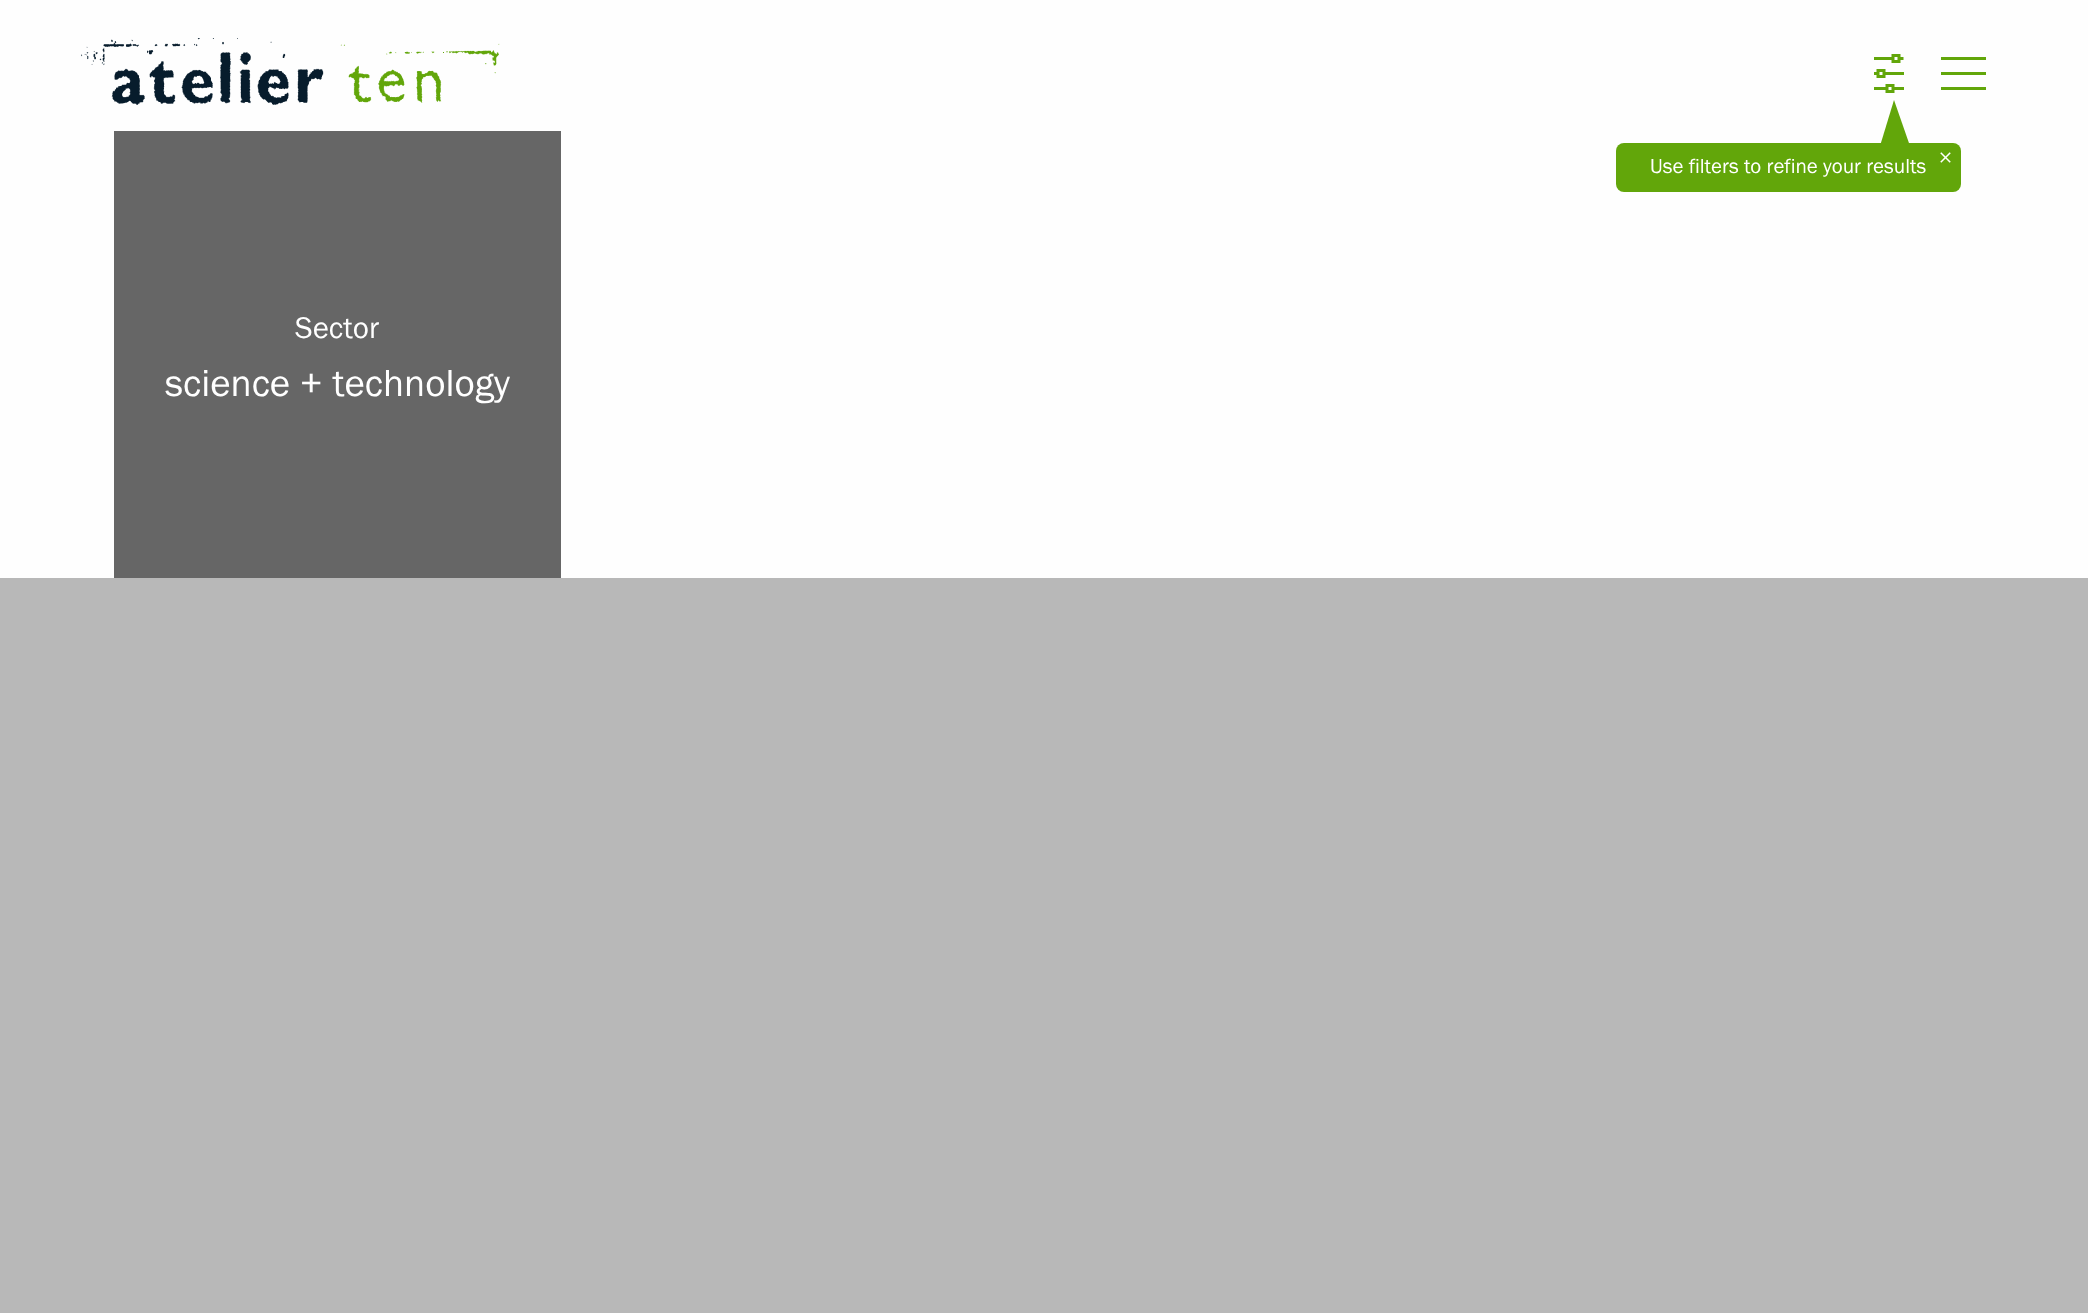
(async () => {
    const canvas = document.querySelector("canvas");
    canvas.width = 2088;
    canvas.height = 1313;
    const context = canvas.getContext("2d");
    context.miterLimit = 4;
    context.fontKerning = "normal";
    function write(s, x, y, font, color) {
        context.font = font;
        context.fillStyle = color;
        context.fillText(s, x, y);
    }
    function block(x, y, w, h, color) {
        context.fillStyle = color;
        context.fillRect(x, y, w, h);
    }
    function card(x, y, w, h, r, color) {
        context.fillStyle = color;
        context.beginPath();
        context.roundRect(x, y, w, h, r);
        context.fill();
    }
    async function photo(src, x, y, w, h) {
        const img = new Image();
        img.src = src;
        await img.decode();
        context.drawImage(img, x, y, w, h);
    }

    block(0, 0, 2088, 1313, "rgb(184, 184, 184)");
    block(0, 0, 2088, 578, "rgb(254, 254, 254)");
    await photo("media/1.png", 81, 38, 419, 67);
    await photo("media/2.png", 1874, 54, 30, 39);
    card(1616, 143, 345, 49, 8, "rgb(98, 166, 10)");
    context.beginPath();
    context.moveTo(1910, 146);
    context.lineTo(1880, 146);
    context.lineTo(1894, 100);
    context.closePath();
    context.fill();
    block(1941, 72, 45, 3, "rgb(98, 166, 10)");
    block(1941, 57, 45, 3, "rgb(98, 166, 10)");
    block(1941, 87, 45, 3, "rgb(98, 166, 10)");
    write("Use filters to refine your results", 1650, 173, "21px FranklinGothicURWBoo", "rgb(255, 255, 255)");
    await photo("media/3.png", 1940, 152, 11, 11);
    block(114, 131, 447, 447, "rgb(102, 102, 102)");
    write("Sector", 295, 338, "31px FranklinGothicURWBoo", "rgb(255, 255, 255)");
    write("science + technology", 165, 396, "39px FranklinGothicURWBoo", "rgb(255, 255, 255)");
})();
